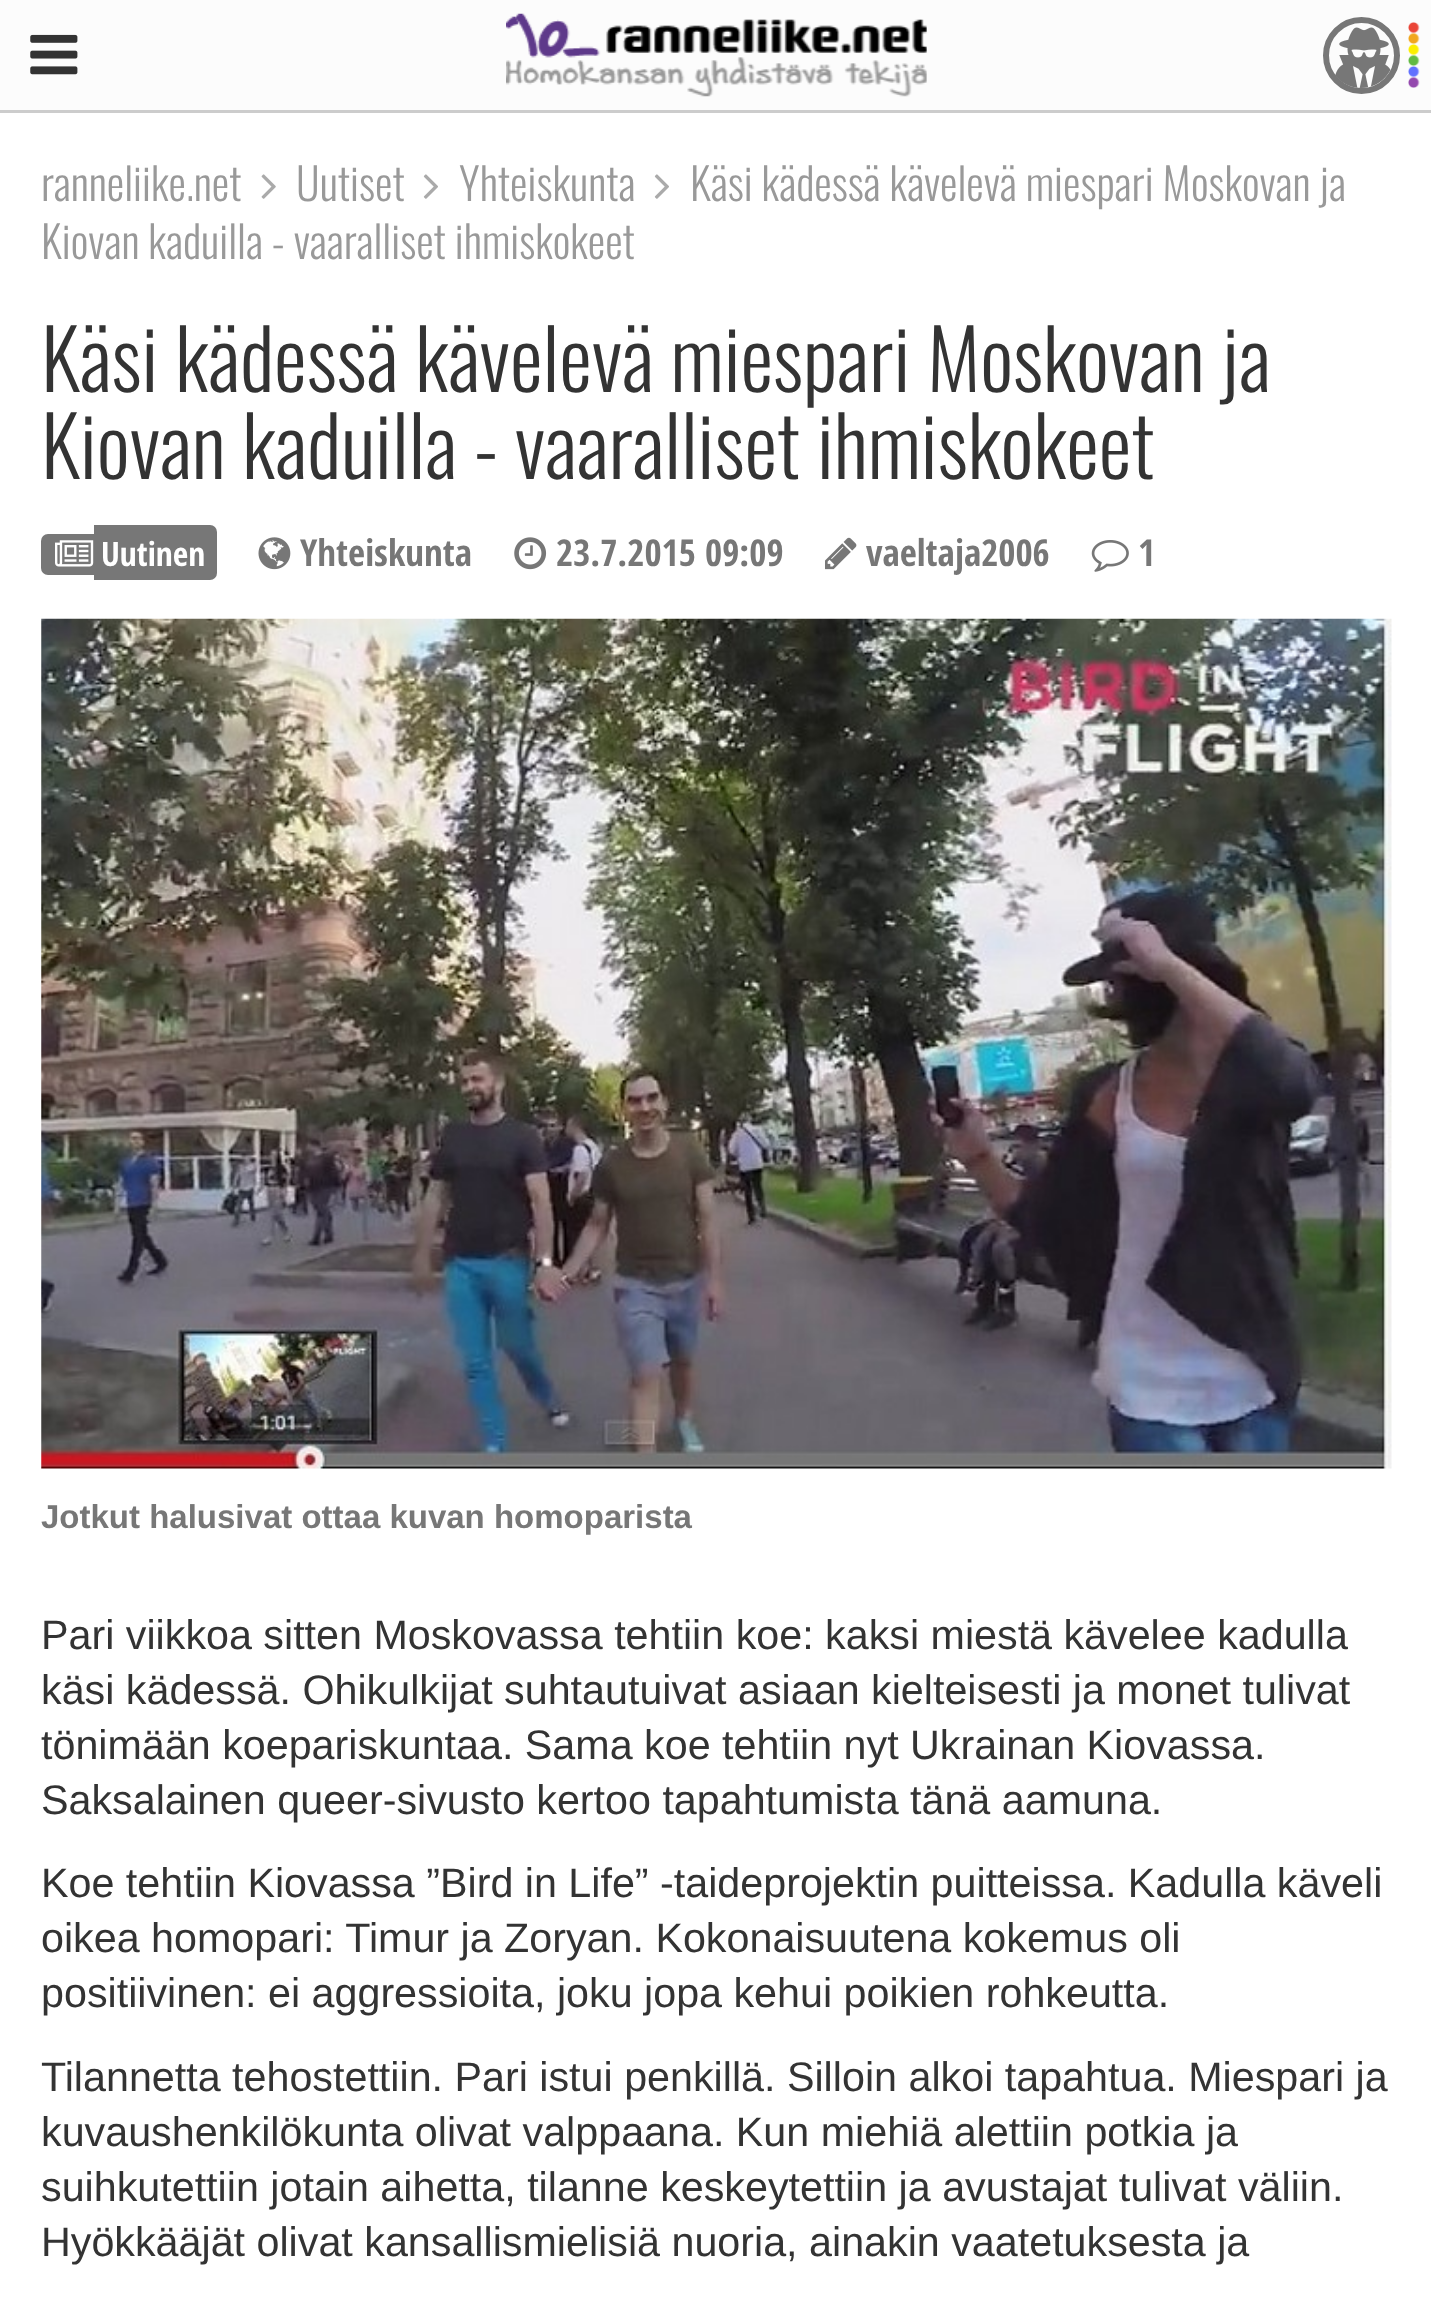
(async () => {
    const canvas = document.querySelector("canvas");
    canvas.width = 1431;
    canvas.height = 2301;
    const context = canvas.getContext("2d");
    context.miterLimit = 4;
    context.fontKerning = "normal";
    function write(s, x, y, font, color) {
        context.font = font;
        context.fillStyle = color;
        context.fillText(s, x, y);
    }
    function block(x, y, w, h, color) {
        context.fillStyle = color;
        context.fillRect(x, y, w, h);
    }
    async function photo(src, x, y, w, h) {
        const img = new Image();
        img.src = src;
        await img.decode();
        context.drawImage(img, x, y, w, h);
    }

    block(0, 0, 1431, 2301, "rgb(255, 255, 255)");
    block(0, 0, 1431, 110, "rgb(252, 252, 252)");
    block(0, 110, 1431, 3, "rgb(204, 204, 204)");
    await photo("media/1.png", 1408, 22, 12, 66);
    await photo("media/2.png", 30, 34, 48, 41);
    await photo("media/3.png", 506, 13, 421, 84);
    context.beginPath();
    context.arc(1361.5, 55.5, 35.5, 0, Math.PI * 2);
    context.strokeStyle = "rgb(119, 119, 119)";
    context.lineWidth = 6;
    context.stroke();
    await photo("media/4.png", 1335, 27, 56, 61);
    write("ranneliike.net", 41, 201, "300 44px Oswald", "rgb(153, 153, 153)");
    await photo("media/5.png", 654, 174, 15, 25);
    write("Käsi kädessä kävelevä miespari Moskovan ja", 690, 201, "300 44px Oswald", "rgb(153, 153, 153)");
    write("Kiovan kaduilla - vaaralliset ihmiskokeet", 41, 259, "300 44px Oswald", "rgb(153, 153, 153)");
    await photo("media/6.png", 261, 174, 15, 25);
    write("Uutiset", 296, 201, "300 44px Oswald", "rgb(153, 153, 153)");
    await photo("media/5.png", 423, 174, 15, 25);
    write("Yhteiskunta", 459, 201, "300 44px Oswald", "rgb(153, 153, 153)");
    write("Käsi kädessä kävelevä miespari Moskovan ja", 41, 392, "300 82.5px Oswald", "rgb(51, 51, 51)");
    write("Kiovan kaduilla - vaaralliset ihmiskokeet", 41, 479, "300 82.5px Oswald", "rgb(51, 51, 51)");
    context.fillStyle = "rgb(119, 119, 119)";
    context.beginPath();
    context.roundRect(41, 534, 53, 41, [7, 0, 0, 7]);
    context.fill();
    context.beginPath();
    context.roundRect(94, 525, 123, 55, [0, 7, 7, 0]);
    context.fill();
    await photo("media/7.png", 55, 540, 39, 27);
    write("Uutinen", 101, 566, "bold 33.5px Open Sans Condensed", "rgb(255, 255, 255)");
    await photo("media/8.png", 258, 537, 33, 33);
    write("Yhteiskunta", 300, 566, "bold 37px Open Sans Condensed", "rgb(119, 119, 119)");
    await photo("media/9.png", 514, 537, 33, 33);
    write("23.7.2015 09:09", 556, 566, "bold 37px Open Sans Condensed", "rgb(119, 119, 119)");
    await photo("media/10.png", 825, 537, 32, 33);
    write("vaeltaja2006", 866, 566, "bold 37px Open Sans Condensed", "rgb(119, 119, 119)");
    await photo("media/11.png", 1091, 540, 38, 32);
    write("1", 1138, 566, "bold 37px Open Sans Condensed", "rgb(119, 119, 119)");
    await photo("media/12.png", 41, 618, 1351, 851);
    write("Jotkut halusivat ottaa kuvan homoparista", 41, 1528, "bold 33px Liberation Sans", "rgb(119, 119, 119)");
    write("Pari viikkoa sitten Moskovassa tehtiin koe: kaksi miestä kävelee kadulla", 41, 1649, "41.25px Liberation Sans", "rgb(51, 51, 51)");
    write("käsi kädessä. Ohikulkijat suhtautuivat asiaan kielteisesti ja monet tulivat", 41, 1704, "41.25px Liberation Sans", "rgb(51, 51, 51)");
    write("tönimään koepariskuntaa. Sama koe tehtiin nyt Ukrainan Kiovassa.", 41, 1759, "41.25px Liberation Sans", "rgb(51, 51, 51)");
    write("Saksalainen queer-sivusto kertoo tapahtumista tänä aamuna.", 41, 1814, "41.25px Liberation Sans", "rgb(51, 51, 51)");
    write("Koe tehtiin Kiovassa ”Bird in Life” -taideprojektin puitteissa. Kadulla käveli", 41, 1897, "41.25px Liberation Sans", "rgb(51, 51, 51)");
    write("oikea homopari: Timur ja Zoryan. Kokonaisuutena kokemus oli", 41, 1952, "41.25px Liberation Sans", "rgb(51, 51, 51)");
    write("positiivinen: ei aggressioita, joku jopa kehui poikien rohkeutta.", 41, 2007, "41.25px Liberation Sans", "rgb(51, 51, 51)");
    write("Tilannetta tehostettiin. Pari istui penkillä. Silloin alkoi tapahtua. Miespari ja", 41, 2091, "41.25px Liberation Sans", "rgb(51, 51, 51)");
    write("kuvaushenkilökunta olivat valppaana. Kun miehiä alettiin potkia ja", 41, 2146, "41.25px Liberation Sans", "rgb(51, 51, 51)");
    write("suihkutettiin jotain aihetta, tilanne keskeytettiin ja avustajat tulivat väliin.", 41, 2201, "41.25px Liberation Sans", "rgb(51, 51, 51)");
    write("Hyökkääjät olivat kansallismielisiä nuoria, ainakin vaatetuksesta ja", 41, 2256, "41.25px Liberation Sans", "rgb(51, 51, 51)");
})();
